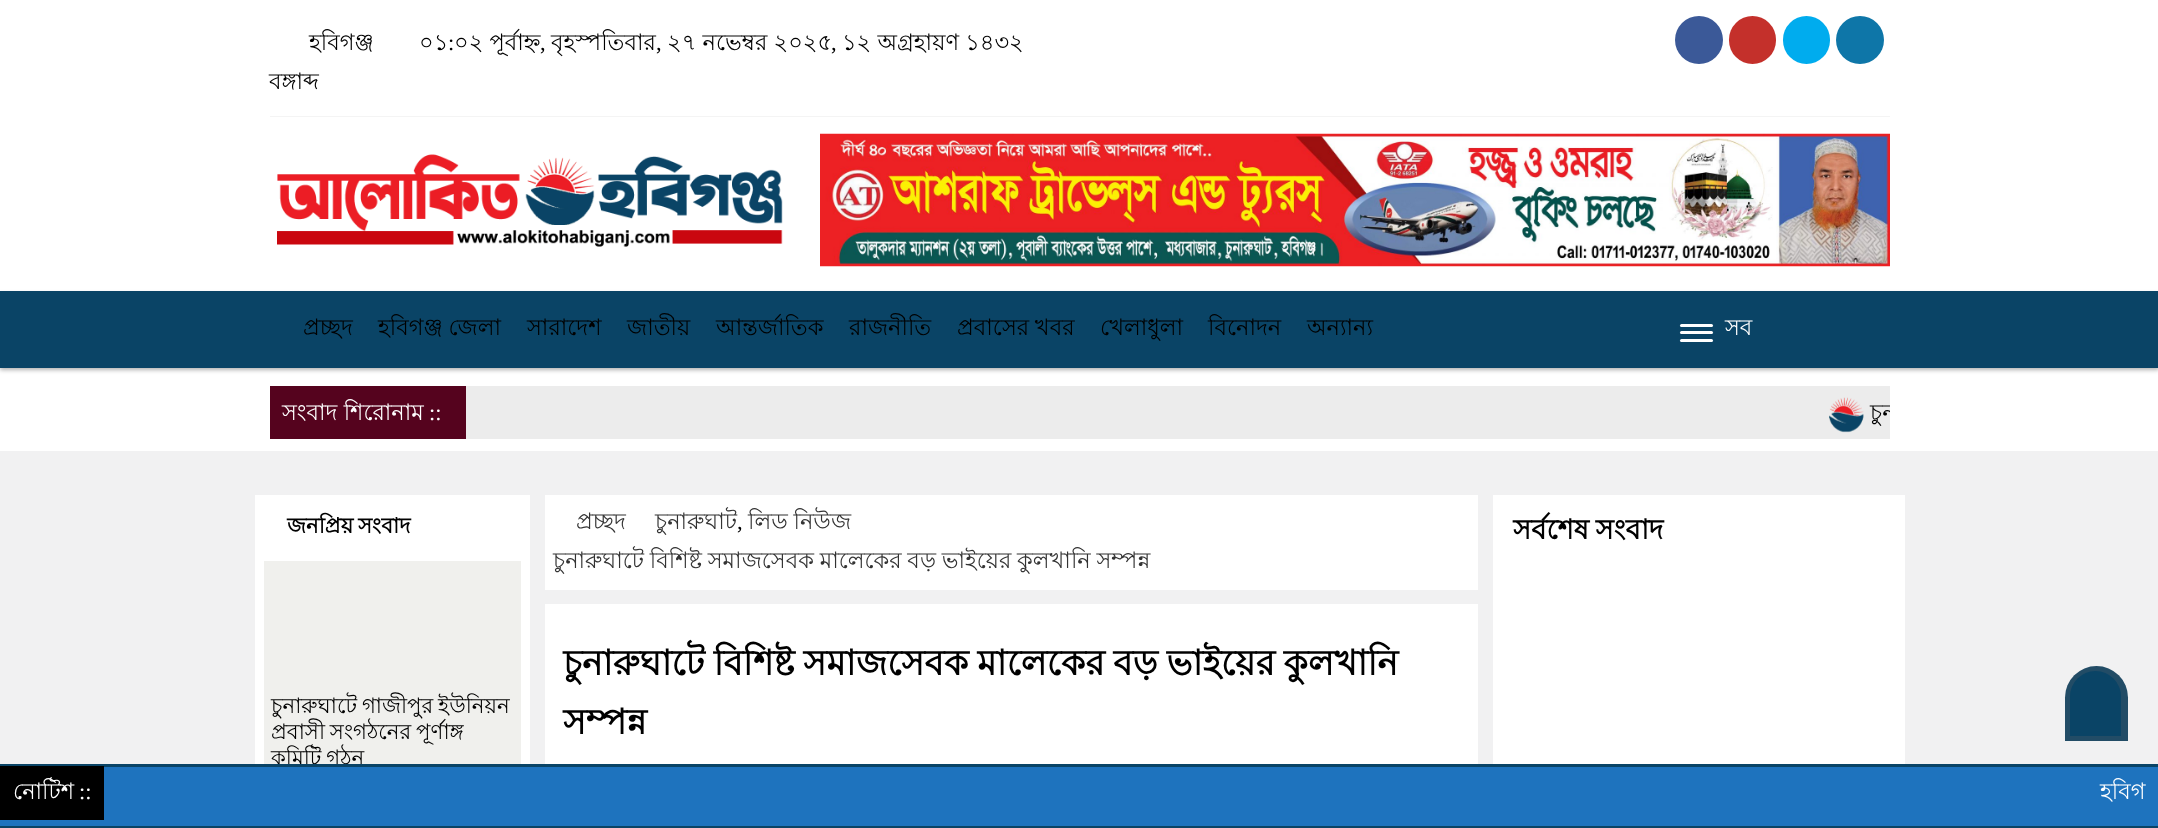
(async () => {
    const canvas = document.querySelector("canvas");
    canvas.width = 2158;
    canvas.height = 828;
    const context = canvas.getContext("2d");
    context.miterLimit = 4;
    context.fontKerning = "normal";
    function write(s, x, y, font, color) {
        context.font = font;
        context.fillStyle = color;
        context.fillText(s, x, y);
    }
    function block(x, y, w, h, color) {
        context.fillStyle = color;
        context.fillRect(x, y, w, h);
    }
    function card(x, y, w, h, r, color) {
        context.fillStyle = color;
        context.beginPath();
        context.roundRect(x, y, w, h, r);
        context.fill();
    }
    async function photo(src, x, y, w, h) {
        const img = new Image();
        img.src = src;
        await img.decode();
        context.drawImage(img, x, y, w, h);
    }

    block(0, 0, 2158, 828, "rgb(255, 255, 255)");
    block(270, 116, 1620, 1, "rgb(244, 244, 244)");
    write("হবিগঞ্জ", 309, 50, "22.5px Lohit Bengali", "rgb(0, 0, 0)");
    write("০১", 419, 50, "22.5px Lohit Bengali", "rgb(0, 0, 0)");
    write(":", 448, 50, "22.5px Liberation Serif", "rgb(0, 0, 0)");
    write("০২ পূর্বাহ্ন", 454, 50, "22.5px Lohit Bengali", "rgb(0, 0, 0)");
    write(",", 540, 50, "22.5px Liberation Serif", "rgb(0, 0, 0)");
    write("বৃহস্পতিবার", 551, 50, "22.5px Lohit Bengali", "rgb(0, 0, 0)");
    write(",", 656, 50, "22.5px Liberation Serif", "rgb(0, 0, 0)");
    write("২৭ নভেম্বর ২০২৫", 667, 50, "22.5px Lohit Bengali", "rgb(0, 0, 0)");
    write(",", 831, 50, "22.5px Liberation Serif", "rgb(0, 0, 0)");
    write("১২ অগ্রহায়ণ ১৪৩২", 842, 50, "22.5px Lohit Bengali", "rgb(0, 0, 0)");
    write("বঙ্গাব্দ", 269, 89, "22.5px Lohit Bengali", "rgb(0, 0, 0)");
    context.fillStyle = "rgb(59, 89, 152)";
    context.beginPath();
    context.arc(1699, 40, 24, 0, Math.PI * 2);
    context.fill();
    card(1729, 16, 47, 48, 23.5, "rgb(196, 48, 43)");
    card(1783, 16, 47, 48, 23.5, "rgb(0, 172, 238)");
    context.fillStyle = "rgb(14, 118, 168)";
    context.beginPath();
    context.arc(1860, 40, 24, 0, Math.PI * 2);
    context.fill();
    await photo("media/1.png", 277, 154, 506, 93);
    await photo("media/2.png", 820, 133, 1070, 134);
    context.fillStyle = "rgba(0, 0, 0, 0.3)";
    context.filter = "blur(2px)";
    context.beginPath();
    context.rect(0, 294, 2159, 76);
    context.fill();
    context.filter = "none";
    block(0, 291, 2158, 77, "rgb(10, 68, 102)");
    write("প্রচ্ছদ", 303, 335, "22.5px Lohit Bengali", "rgb(0, 0, 0)");
    context.wordSpacing = "-0.5px";
    write("হবিগঞ্জ জেলা", 378, 335, "22.5px Lohit Bengali", "rgb(0, 0, 0)");
    context.wordSpacing = "0px";
    write("সারাদেশ", 527, 335, "22.5px Lohit Bengali", "rgb(0, 0, 0)");
    write("জাতীয়", 627, 335, "22.5px Lohit Bengali", "rgb(0, 0, 0)");
    write("আন্তর্জাতিক", 716, 335, "22.5px Lohit Bengali", "rgb(0, 0, 0)");
    write("রাজনীতি", 849, 335, "22.5px Lohit Bengali", "rgb(0, 0, 0)");
    context.wordSpacing = "-0.5px";
    write("প্রবাসের খবর", 957, 335, "22.5px Lohit Bengali", "rgb(0, 0, 0)");
    context.wordSpacing = "0px";
    write("খেলাধুলা", 1100, 335, "22.5px Lohit Bengali", "rgb(0, 0, 0)");
    write("বিনোদন", 1208, 335, "22.5px Lohit Bengali", "rgb(0, 0, 0)");
    write("অন্যান্য", 1307, 335, "22.5px Lohit Bengali", "rgb(0, 0, 0)");
    card(1680, 324, 33, 3, 1.5, "rgb(255, 255, 255)");
    card(1680, 331, 33, 3, 1.5, "rgb(255, 255, 255)");
    card(1680, 339, 33, 3, 1.5, "rgb(255, 255, 255)");
    write("সব", 1725, 335, "22.5px Lohit Bengali", "rgb(255, 255, 255)");
    block(270, 386, 196, 53, "rgb(85, 3, 30)");
    write("সংবাদ শিরোনাম", 282, 420, "22.5px Lohit Bengali", "rgb(255, 255, 255)");
    write("::", 429, 420, "22.5px Liberation Serif", "rgb(255, 255, 255)");
    block(466, 386, 1424, 53, "rgb(236, 236, 236)");
    await photo("media/3.png", 1829, 397, 35, 36);
    context.save();
    context.beginPath();
    context.rect(270, 386, 1620, 53);
    context.clip();
    context.wordSpacing = "-0.5px";
    write("চুন", 1870, 420, "22.5px Lohit Bengali", "rgb(0, 0, 0)");
    context.restore();
    block(0, 451, 2158, 313, "rgb(241, 241, 242)");
    block(255, 495, 275, 269, "rgb(255, 255, 255)");
    context.wordSpacing = "-1px";
    write("জনপ্রিয় সংবাদ", 287, 533, "bold 21.25px Lohit Bengali", "rgb(0, 0, 0)");
    block(264, 561, 257, 203, "rgb(240, 240, 237)");
    write("চুনারুঘাটে গাজীপুর ইউনিয়ন", 271, 713, "21.25px Lohit Bengali", "rgb(0, 0, 0)");
    write("প্রবাসী সংগঠনের পূর্ণাঙ্গ", 271, 739, "21.25px Lohit Bengali", "rgb(0, 0, 0)");
    write("কমিটি গঠন", 271, 765, "21.25px Lohit Bengali", "rgb(0, 0, 0)");
    block(545, 495, 933, 95, "rgb(255, 255, 255)");
    context.wordSpacing = "0px";
    write("প্রচ্ছদ", 576, 529, "22.5px Lohit Bengali", "rgb(51, 51, 51)");
    write("চুনারুঘাট", 655, 529, "22.5px Lohit Bengali", "rgb(51, 51, 51)");
    write(",", 737, 529, "22.5px Liberation Serif", "rgb(0, 0, 0)");
    context.wordSpacing = "-0.5px";
    write("লিড নিউজ", 748, 529, "22.5px Lohit Bengali", "rgb(51, 51, 51)");
    write("চুনারুঘাটে বিশিষ্ট সমাজসেবক মালেকের বড় ভাইয়ের কুলখানি সম্পন্ন", 553, 568, "22.5px Lohit Bengali", "rgb(51, 51, 51)");
    block(545, 604, 933, 160, "rgb(255, 255, 255)");
    context.wordSpacing = "-1px";
    write("চুনারুঘাটে বিশিষ্ট সমাজসেবক মালেকের বড় ভাইয়ের কুলখানি", 563, 675, "bold 35px Lohit Bengali", "rgb(0, 0, 0)");
    context.wordSpacing = "0px";
    write("সম্পন্ন", 563, 734, "bold 35px Lohit Bengali", "rgb(0, 0, 0)");
    block(1493, 495, 412, 269, "rgb(255, 255, 255)");
    context.wordSpacing = "-1px";
    write("সর্বশেষ সংবাদ", 1513, 539, "bold 27.5px Lohit Bengali", "rgb(0, 0, 0)");
    context.fillStyle = "rgb(34, 76, 102)";
    context.beginPath();
    context.roundRect(2065, 666, 63, 75, [31.5, 31.5, 0, 0]);
    context.fill();
    context.fillStyle = "rgb(10, 68, 102)";
    context.beginPath();
    context.roundRect(2070, 671, 51, 65, [25.5, 25.5, 0, 0]);
    context.fill();
    block(0, 767, 2158, 59, "rgb(30, 115, 190)");
    block(0, 764, 2158, 3, "rgb(10, 68, 102)");
    block(0, 826, 2158, 2, "rgb(10, 68, 102)");
    block(0, 766, 104, 54, "rgb(0, 0, 0)");
    context.wordSpacing = "0px";
    write("নোটিশ", 13, 799, "22.5px Lohit Bengali", "rgb(255, 255, 255)");
    write("::", 79, 799, "22.5px Liberation Serif", "rgb(255, 255, 255)");
    write("হবিগ", 2100, 799, "22.5px Lohit Bengali", "rgb(255, 255, 255)");
})();
